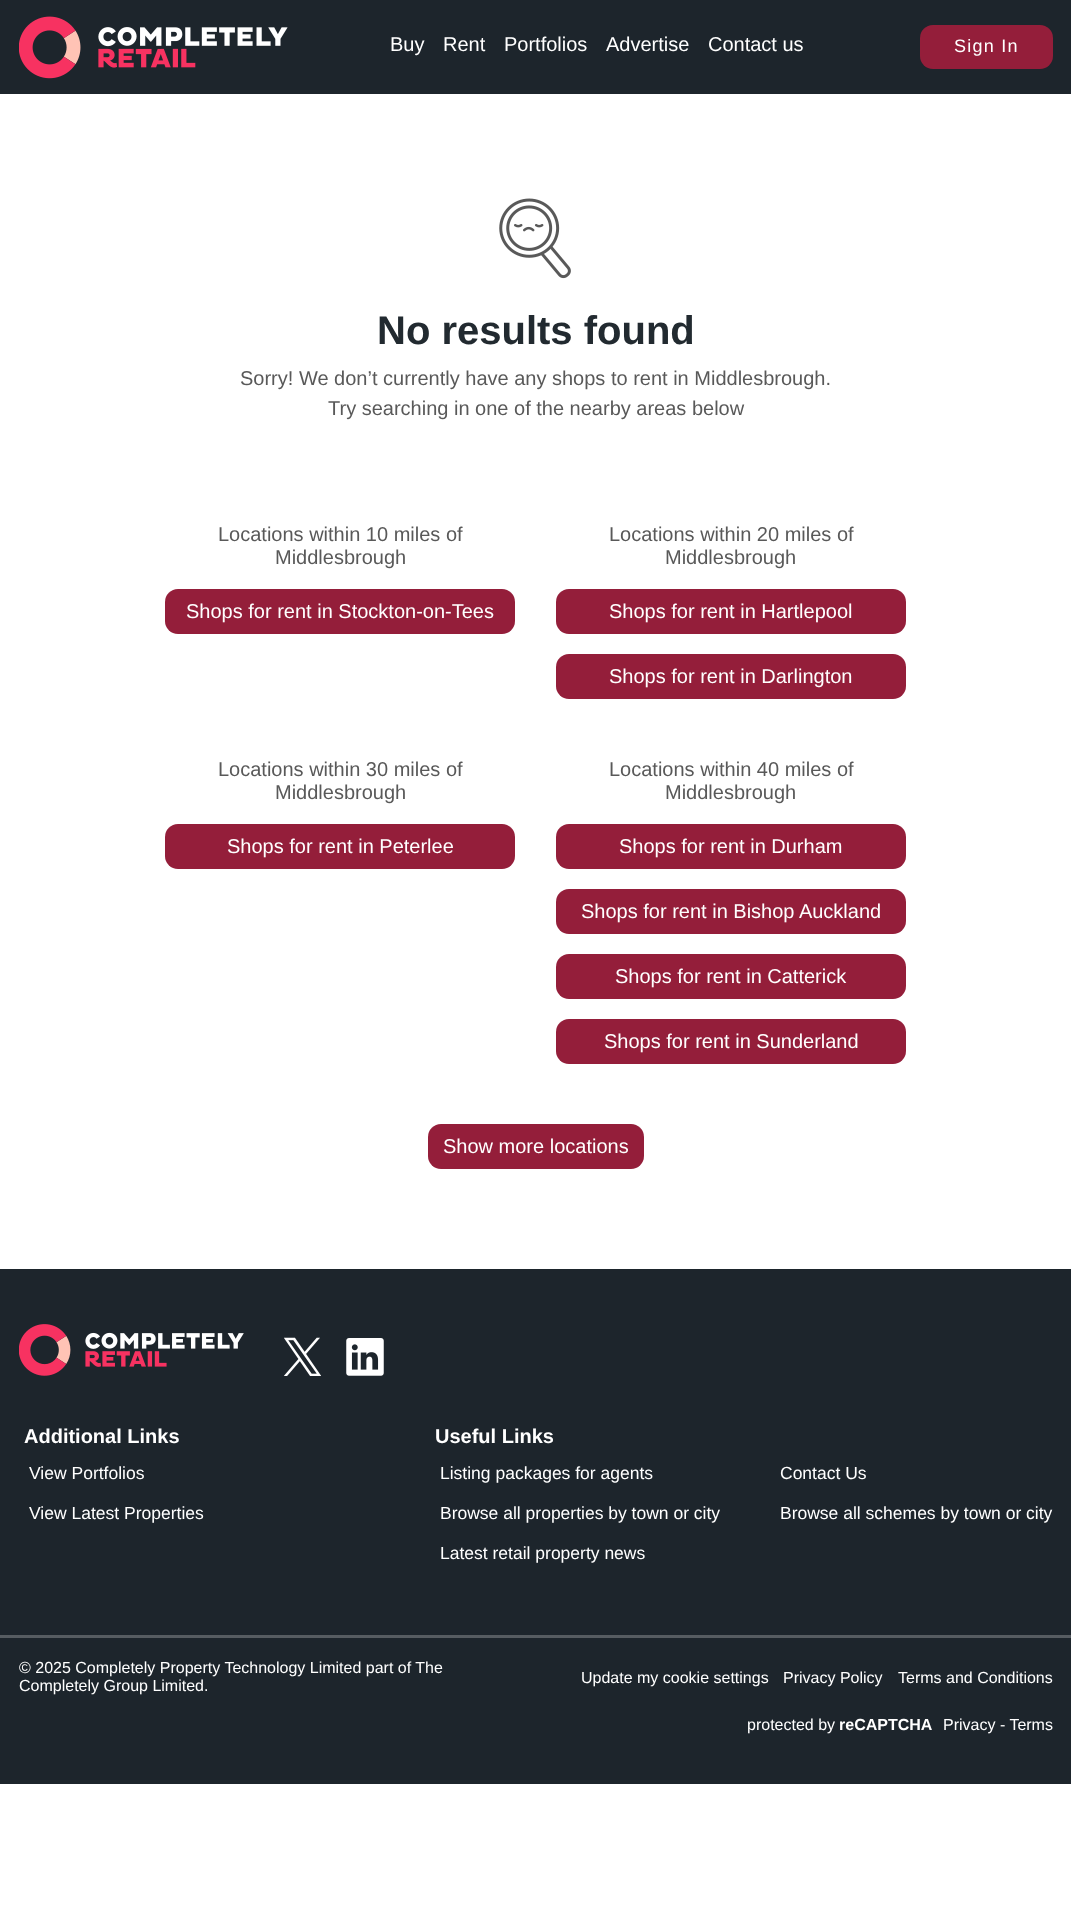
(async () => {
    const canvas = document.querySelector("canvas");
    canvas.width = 1071;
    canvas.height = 1924;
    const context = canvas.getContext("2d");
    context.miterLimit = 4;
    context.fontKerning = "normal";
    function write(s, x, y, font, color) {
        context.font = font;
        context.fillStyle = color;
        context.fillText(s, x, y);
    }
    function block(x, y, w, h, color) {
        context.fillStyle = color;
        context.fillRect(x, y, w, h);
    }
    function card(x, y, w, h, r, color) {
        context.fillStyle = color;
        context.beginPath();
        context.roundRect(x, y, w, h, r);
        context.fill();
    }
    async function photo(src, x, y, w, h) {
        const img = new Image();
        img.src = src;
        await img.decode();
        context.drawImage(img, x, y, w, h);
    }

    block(0, 0, 1071, 1924, "rgb(255, 255, 255)");
    block(0, 0, 1071, 94, "rgb(29, 37, 44)");
    await photo("media/1.png", 19, 16, 269, 63);
    write("Buy", 390, 51, "20px Liberation Sans", "rgb(255, 255, 255)");
    write("Rent", 443, 51, "20px Liberation Sans", "rgb(255, 255, 255)");
    write("Portfolios", 504, 51, "20px Liberation Sans", "rgb(255, 255, 255)");
    write("Advertise", 606, 51, "20px Liberation Sans", "rgb(255, 255, 255)");
    write("Contact us", 708, 51, "20px Liberation Sans", "rgb(255, 255, 255)");
    card(920, 25, 133, 44, 13, "rgb(148, 30, 58)");
    context.letterSpacing = "1.25px";
    write("Sign In", 954, 52, "18px Liberation Sans", "rgb(255, 255, 255)");
    await photo("media/2.png", 499, 198, 72, 81);
    context.letterSpacing = "0px";
    write("No results found", 377, 344, "bold 40px Liberation Sans", "rgb(34, 42, 48)");
    write("Sorry! We don’t currently have any shops to rent in Middlesbrough.", 240, 385, "20px Liberation Sans", "rgb(89, 89, 89)");
    write("Try searching in one of the nearby areas below", 328, 415, "20px Liberation Sans", "rgb(89, 89, 89)");
    write("Locations within 10 miles of", 218, 541, "20px Liberation Sans", "rgb(89, 89, 89)");
    write("Middlesbrough", 275, 564, "20px Liberation Sans", "rgb(89, 89, 89)");
    card(165, 589, 350, 45, 13, "rgb(148, 30, 58)");
    write("Shops for rent in Stockton-on-Tees", 186, 618, "20px Liberation Sans", "rgb(255, 255, 255)");
    write("Locations within 20 miles of", 609, 541, "20px Liberation Sans", "rgb(89, 89, 89)");
    write("Middlesbrough", 665, 564, "20px Liberation Sans", "rgb(89, 89, 89)");
    card(556, 589, 350, 45, 13, "rgb(148, 30, 58)");
    write("Shops for rent in Hartlepool", 609, 618, "20px Liberation Sans", "rgb(255, 255, 255)");
    card(556, 654, 350, 45, 13, "rgb(148, 30, 58)");
    write("Shops for rent in Darlington", 609, 683, "20px Liberation Sans", "rgb(255, 255, 255)");
    write("Locations within 30 miles of", 218, 776, "20px Liberation Sans", "rgb(89, 89, 89)");
    write("Middlesbrough", 275, 799, "20px Liberation Sans", "rgb(89, 89, 89)");
    card(165, 824, 350, 45, 13, "rgb(148, 30, 58)");
    write("Shops for rent in Peterlee", 227, 853, "20px Liberation Sans", "rgb(255, 255, 255)");
    write("Locations within 40 miles of", 609, 776, "20px Liberation Sans", "rgb(89, 89, 89)");
    write("Middlesbrough", 665, 799, "20px Liberation Sans", "rgb(89, 89, 89)");
    card(556, 824, 350, 45, 13, "rgb(148, 30, 58)");
    write("Shops for rent in Durham", 619, 853, "20px Liberation Sans", "rgb(255, 255, 255)");
    card(556, 889, 350, 45, 13, "rgb(148, 30, 58)");
    write("Shops for rent in Bishop Auckland", 581, 918, "20px Liberation Sans", "rgb(255, 255, 255)");
    card(556, 954, 350, 45, 13, "rgb(148, 30, 58)");
    write("Shops for rent in Catterick", 615, 983, "20px Liberation Sans", "rgb(255, 255, 255)");
    card(556, 1019, 350, 45, 13, "rgb(148, 30, 58)");
    write("Shops for rent in Sunderland", 604, 1048, "20px Liberation Sans", "rgb(255, 255, 255)");
    card(428, 1124, 216, 45, 13, "rgb(148, 30, 58)");
    write("Show more locations", 443, 1153, "20px Liberation Sans", "rgb(255, 255, 255)");
    block(0, 1269, 1071, 515, "rgb(29, 37, 44)");
    await photo("media/3.png", 19, 1324, 225, 52);
    await photo("media/4.png", 284, 1337, 37, 39);
    await photo("media/5.png", 346, 1338, 38, 38);
    write("Additional Links", 24, 1443, "bold 20px Liberation Sans", "rgb(255, 255, 255)");
    write("View Portfolios", 29, 1479, "17.5px Liberation Sans", "rgb(255, 255, 255)");
    write("View Latest Properties", 29, 1519, "17.5px Liberation Sans", "rgb(255, 255, 255)");
    write("Useful Links", 435, 1443, "bold 20px Liberation Sans", "rgb(255, 255, 255)");
    write("Listing packages for agents", 440, 1479, "17.5px Liberation Sans", "rgb(255, 255, 255)");
    write("Contact Us", 780, 1479, "17.5px Liberation Sans", "rgb(255, 255, 255)");
    write("Browse all properties by town or city", 440, 1519, "17.5px Liberation Sans", "rgb(255, 255, 255)");
    write("Browse all schemes by town or city", 780, 1519, "17.5px Liberation Sans", "rgb(255, 255, 255)");
    write("Latest retail property news", 440, 1559, "17.5px Liberation Sans", "rgb(255, 255, 255)");
    block(0, 1635, 1071, 3, "rgb(86, 92, 97)");
    write("© 2025 Completely Property Technology Limited part of The", 19, 1673, "16px Liberation Sans", "rgb(255, 255, 255)");
    write("Completely Group Limited.", 19, 1691, "16px Liberation Sans", "rgb(255, 255, 255)");
    write("Update my cookie settings", 581, 1683, "16px Liberation Sans", "rgb(255, 255, 255)");
    write("Privacy Policy", 783, 1683, "16px Liberation Sans", "rgb(255, 255, 255)");
    write("Terms and Conditions", 898, 1683, "16px Liberation Sans", "rgb(255, 255, 255)");
    write("protected by", 747, 1730, "16px Liberation Sans", "rgb(255, 255, 255)");
    write("reCAPTCHA", 839, 1730, "bold 16px Liberation Sans", "rgb(255, 255, 255)");
    write("Privacy - Terms", 943, 1730, "16px Liberation Sans", "rgb(255, 255, 255)");
})();
